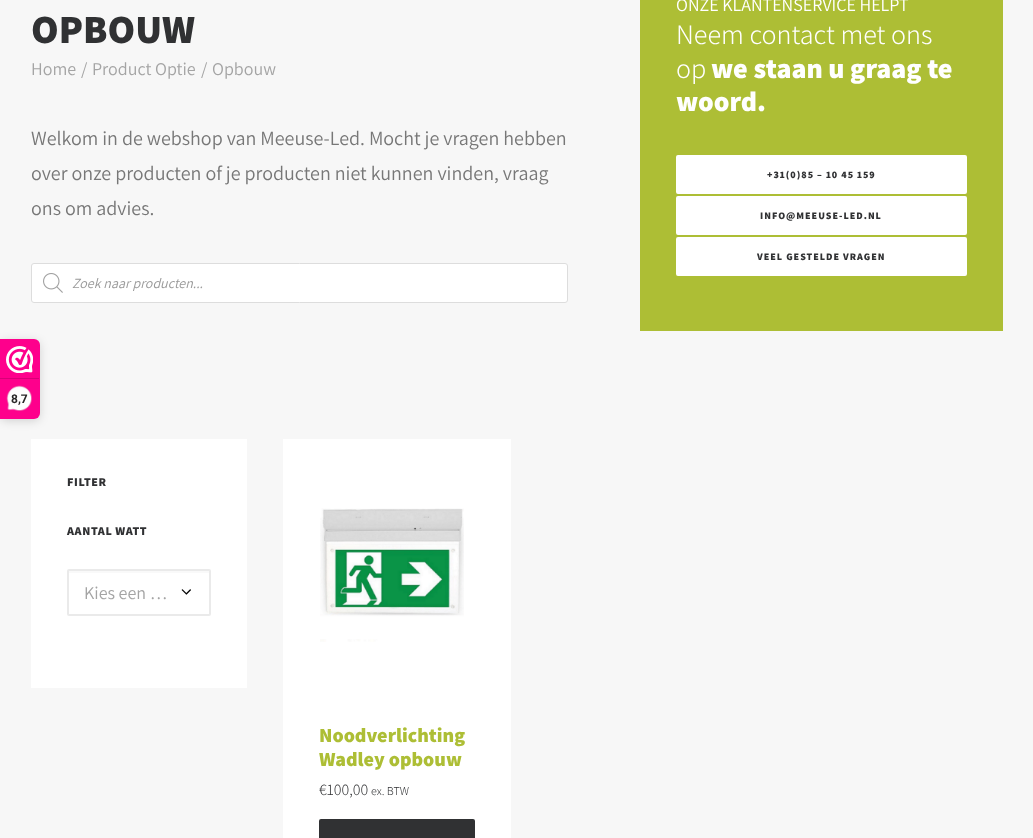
(async () => {
    const canvas = document.querySelector("canvas");
    canvas.width = 1033;
    canvas.height = 838;
    const context = canvas.getContext("2d");
    context.miterLimit = 4;
    context.fontKerning = "normal";
    function write(s, x, y, font, color) {
        context.font = font;
        context.fillStyle = color;
        context.fillText(s, x, y);
    }
    function block(x, y, w, h, color) {
        context.fillStyle = color;
        context.fillRect(x, y, w, h);
    }
    async function photo(src, x, y, w, h) {
        const img = new Image();
        img.src = src;
        await img.decode();
        context.drawImage(img, x, y, w, h);
    }

    block(0, 0, 1033, 838, "rgb(247, 247, 247)");
    context.fillStyle = "rgba(0, 0, 0, 0.15)";
    context.filter = "blur(5px)";
    context.beginPath();
    context.roundRect(0, 341, 40, 80, 6);
    context.fill();
    context.filter = "none";
    context.fillStyle = "rgb(254, 0, 140)";
    context.beginPath();
    context.roundRect(0, 339, 40, 80, [0, 6, 6, 0]);
    context.fill();
    await photo("media/1.png", 6, 346, 27, 27);
    block(0, 378, 39, 1, "rgb(216, 0, 119)");
    await photo("media/2.png", 6, 385, 26, 26);
    write("8,7", 11, 403, "bold 12px Roboto", "rgb(39, 38, 38)");
    write("OPBOUW", 31, 43, "800 40px Assistant", "rgb(48, 49, 51)");
    write("Home", 31, 75, "18px Assistant", "rgb(164, 164, 164)");
    write("/", 81, 75, "18px Assistant", "rgb(164, 164, 164)");
    write("Product Optie", 92, 75, "18px Assistant", "rgb(164, 164, 164)");
    write("/", 201, 75, "18px Assistant", "rgb(164, 164, 164)");
    write("Opbouw", 212, 75, "18px Assistant", "rgb(164, 164, 164)");
    write("Welkom in de webshop van Meeuse-Led. Mocht je vragen hebben", 31, 145, "20px Assistant", "rgb(119, 119, 119)");
    write("over onze producten of je producten niet kunnen vinden, vraag", 31, 180, "20px Assistant", "rgb(119, 119, 119)");
    write("ons om advies.", 31, 215, "20px Assistant", "rgb(119, 119, 119)");
    context.fillStyle = "rgb(255, 255, 255)";
    context.beginPath();
    context.roundRect(31.5, 263.5, 536, 39, 2.5);
    context.fill();
    context.strokeStyle = "rgb(221, 221, 221)";
    context.stroke();
    await photo("media/3.png", 43, 273, 20, 20);
    write("Zoek naar producten...", 72, 288, "italic 14px Assistant", "rgb(153, 153, 153)");
    block(640, 0, 363, 331, "rgb(173, 190, 53)");
    write("ONZE KLANTENSERVICE HELPT", 676, 11, "18px Assistant", "rgb(255, 255, 255)");
    write("Neem contact met ons", 676, 44, "300 28px Assistant", "rgb(255, 255, 255)");
    write("op", 676, 78, "300 28px Assistant", "rgb(255, 255, 255)");
    write("we staan u graag te", 711, 78, "800 28px Assistant", "rgb(255, 255, 255)");
    write("woord.", 676, 111, "800 28px Assistant", "rgb(255, 255, 255)");
    context.beginPath();
    context.roundRect(677, 156, 289, 37, 1);
    context.fill();
    context.strokeStyle = "rgb(255, 255, 255)";
    context.lineWidth = 2;
    context.stroke();
    context.letterSpacing = "1px";
    write("+31(0)85 – 10 45 159", 767, 178, "800 10px Assistant", "rgb(48, 49, 51)");
    context.fillStyle = "rgb(255, 255, 255)";
    context.beginPath();
    context.roundRect(677, 197, 289, 37, 1);
    context.fill();
    context.stroke();
    write("INFO@MEEUSE-LED.NL", 760, 219, "800 10px Assistant", "rgb(48, 49, 51)");
    context.fillStyle = "rgb(255, 255, 255)";
    context.beginPath();
    context.roundRect(677, 238, 289, 37, 1);
    context.fill();
    context.stroke();
    write("VEEL GESTELDE VRAGEN", 757, 260, "800 10px Assistant", "rgb(48, 49, 51)");
    block(31, 439, 216, 249, "rgb(255, 255, 255)");
    context.letterSpacing = "0.6px";
    write("FILTER", 67, 486, "800 12px Assistant", "rgb(48, 49, 51)");
    write("AANTAL WATT", 67, 535, "800 12px Assistant", "rgb(48, 49, 51)");
    await photo("media/4.png", 181, 589, 10, 6);
    block(69, 571, 140, 2, "rgb(249, 249, 249)");
    context.beginPath();
    context.roundRect(68, 570, 142, 45, 1);
    context.strokeStyle = "rgb(234, 234, 234)";
    context.stroke();
    context.letterSpacing = "0px";
    write("Kies een …", 84, 599, "18px Assistant", "rgb(164, 164, 164)");
    block(283, 439, 228, 399, "rgb(255, 255, 255)");
    await photo("media/5.png", 320, 508, 144, 134);
    write("Noodverlichting", 319, 742, "800 20px Assistant", "rgb(173, 190, 53)");
    write("Wadley opbouw", 319, 766, "800 20px Assistant", "rgb(173, 190, 53)");
    write("€100,00", 319, 795, "300 16px Assistant", "rgb(48, 49, 51)");
    write("ex. BTW", 371, 795, "300 12px Assistant", "rgb(48, 49, 51)");
    context.beginPath();
    context.roundRect(320, 820, 154, 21, 1);
    context.fill();
    context.strokeStyle = "rgb(48, 49, 51)";
    context.stroke();
})();
